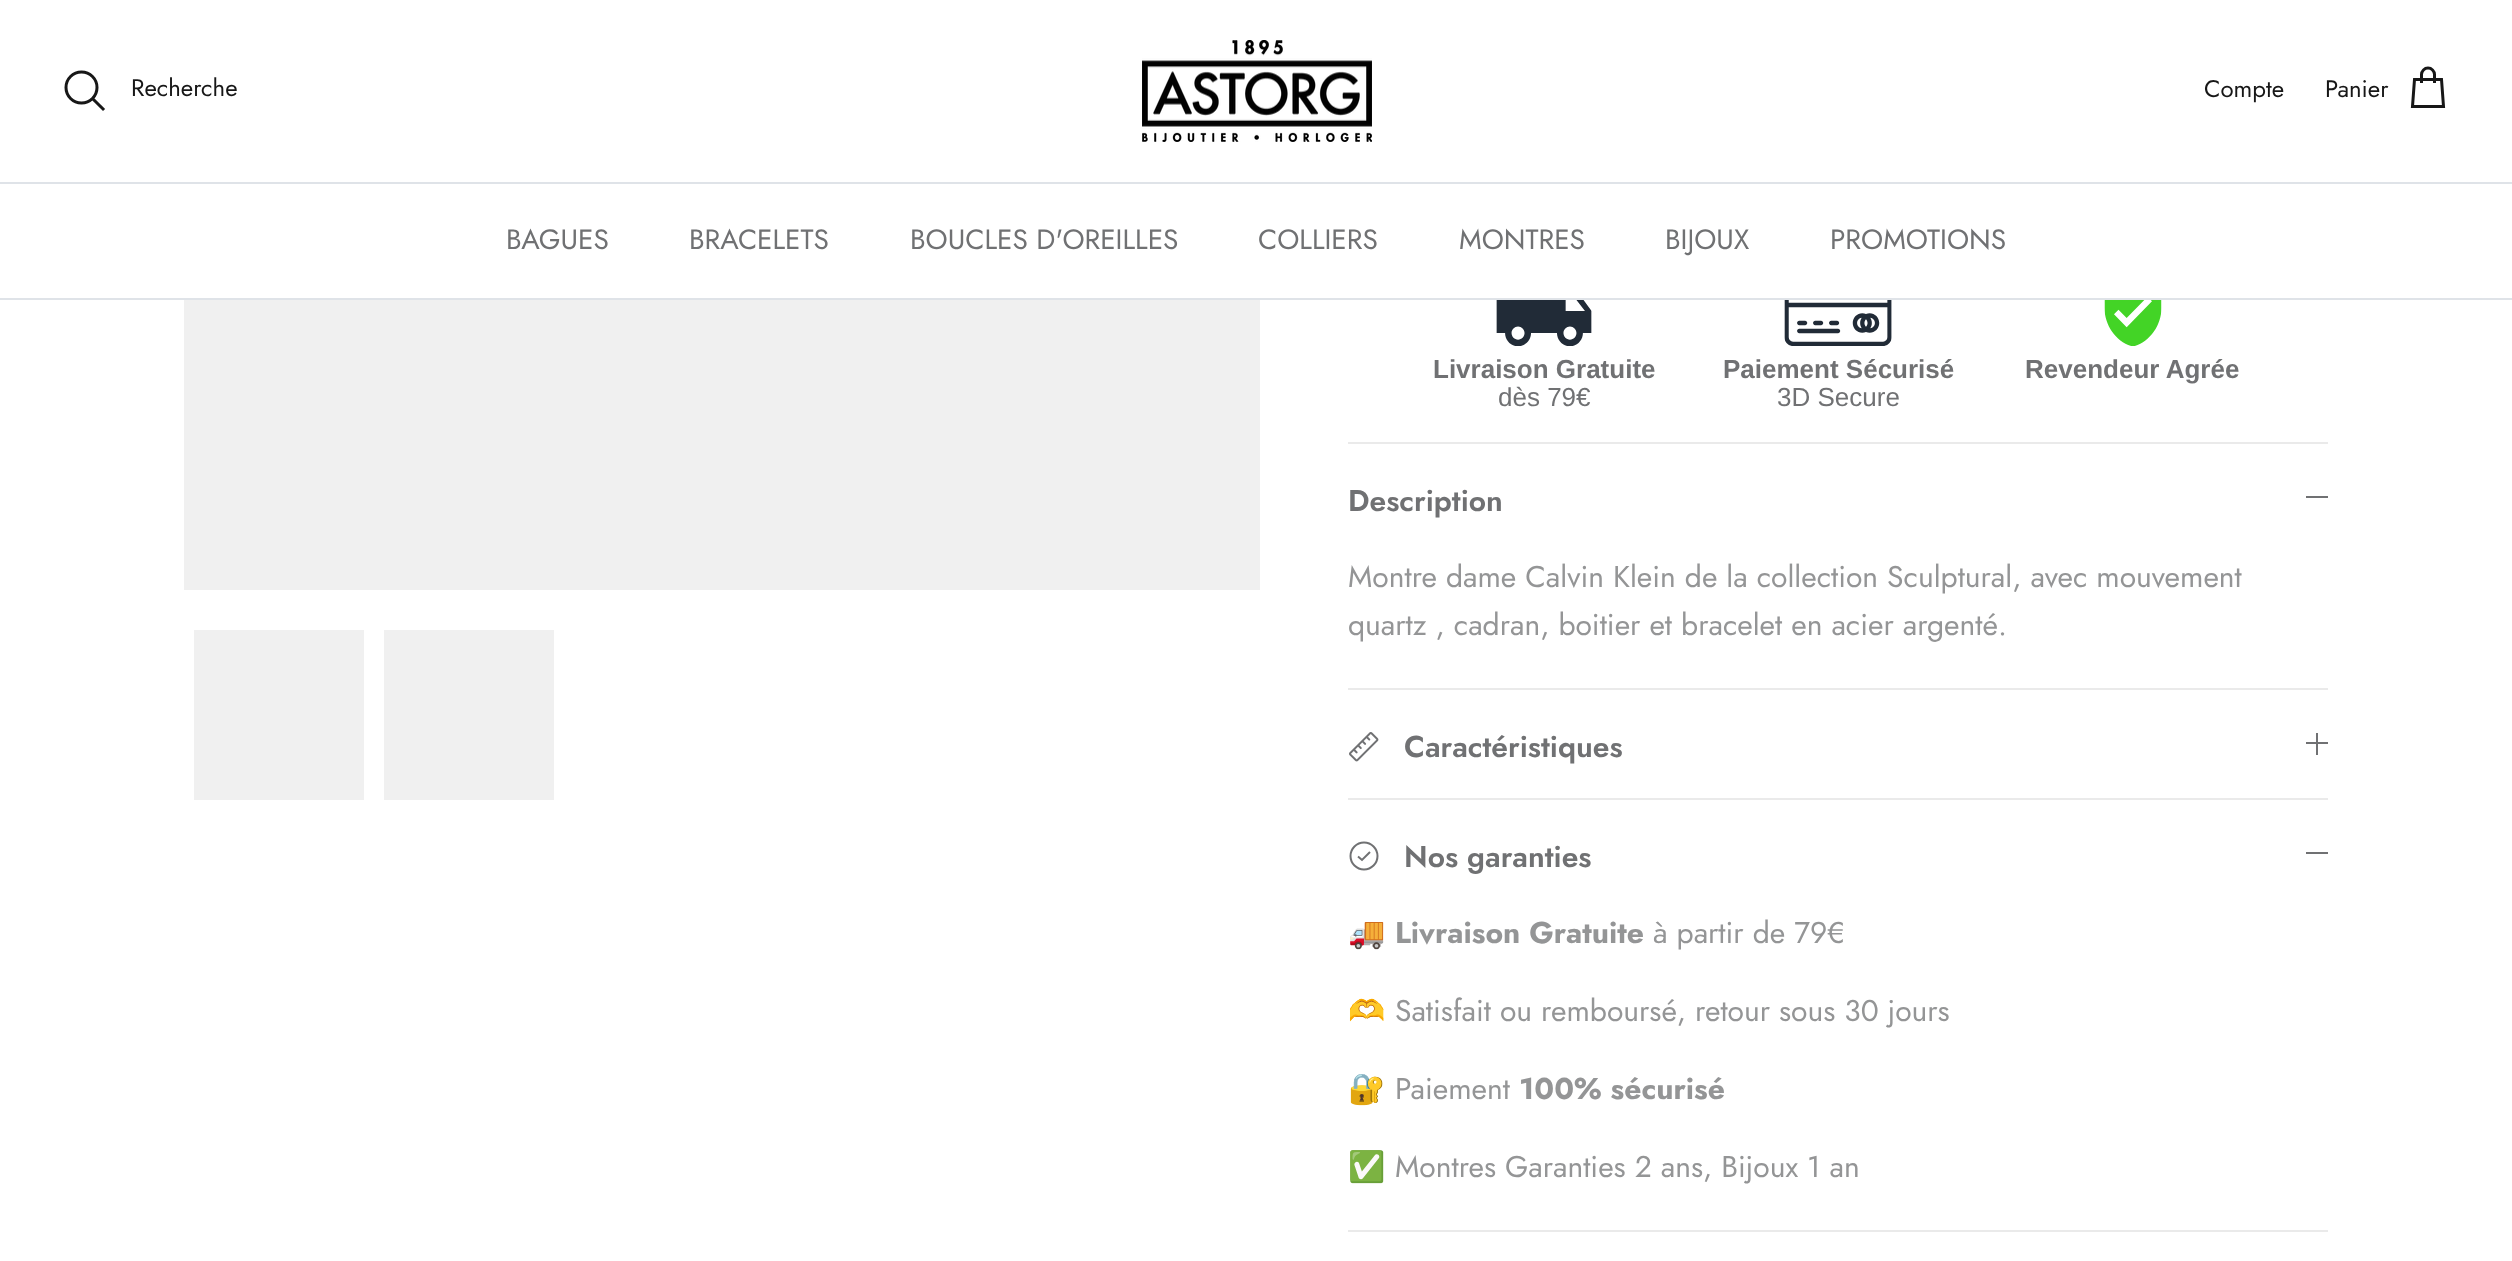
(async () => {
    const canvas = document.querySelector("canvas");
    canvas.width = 2512;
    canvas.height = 1261;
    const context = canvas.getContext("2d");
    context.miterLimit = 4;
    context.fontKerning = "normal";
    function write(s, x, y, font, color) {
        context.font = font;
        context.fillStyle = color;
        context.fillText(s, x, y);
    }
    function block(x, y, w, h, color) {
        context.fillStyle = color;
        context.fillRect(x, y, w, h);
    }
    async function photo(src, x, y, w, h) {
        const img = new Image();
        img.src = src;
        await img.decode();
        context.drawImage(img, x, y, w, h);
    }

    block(0, 0, 2512, 1261, "rgb(255, 255, 255)");
    block(0, 182, 2512, 2, "rgb(223, 227, 232)");
    context.beginPath();
    context.arc(81.5, 87.5, 15.5, 0, Math.PI * 2);
    context.strokeStyle = "rgb(23, 23, 23)";
    context.lineWidth = 3;
    context.stroke();
    write("Recherche", 131, 96, "24px Jost", "rgb(23, 23, 23)");
    context.beginPath();
    context.moveTo(94, 100);
    context.lineTo(103, 109);
    context.lineCap = "square";
    context.stroke();
    await photo("media/1.png", 1142, 40, 230, 102);
    write("Compte", 2204, 97, "24px Jost", "rgb(23, 23, 23)");
    write("Panier", 2325, 97, "24px Jost", "rgb(23, 23, 23)");
    context.beginPath();
    context.moveTo(2434.5, 83);
    context.lineTo(2434.5, 74.5);
    context.bezierCurveTo(2434.5, 71, 2431.5, 68, 2428, 68);
    context.bezierCurveTo(2424.5, 68, 2421.5, 71, 2421.5, 74.5);
    context.lineTo(2421.5, 83);
    context.moveTo(2414.5, 79.5);
    context.lineTo(2441.5, 79.5);
    context.lineTo(2443.5, 106.5);
    context.lineTo(2412.5, 106.5);
    context.closePath();
    context.lineCap = "butt";
    context.stroke();
    block(0, 298, 2512, 2, "rgb(223, 227, 232)");
    write("BAGUES", 506, 249, "28px Jost", "rgb(112, 113, 115)");
    write("BRACELETS", 689, 249, "28px Jost", "rgb(112, 113, 115)");
    write("BOUCLES D'OREILLES", 910, 249, "28px Jost", "rgb(112, 113, 115)");
    write("COLLIERS", 1258, 249, "28px Jost", "rgb(112, 113, 115)");
    write("MONTRES", 1459, 249, "28px Jost", "rgb(112, 113, 115)");
    write("BIJOUX", 1665, 249, "28px Jost", "rgb(112, 113, 115)");
    write("PROMOTIONS", 1830, 249, "28px Jost", "rgb(112, 113, 115)");
    block(184, 300, 1076, 290, "rgb(240, 240, 240)");
    block(194, 630, 170, 170, "rgb(240, 240, 240)");
    block(384, 630, 170, 170, "rgb(240, 240, 240)");
    await photo("media/2.png", 1496, 300, 96, 46);
    await photo("media/3.png", 1784, 300, 108, 46);
    await photo("media/4.png", 2104, 300, 58, 46);
    write("Livraison Gratuite", 1433, 378, "bold 26px Liberation Sans", "rgb(112, 113, 115)");
    write("dès 79€", 1498, 406, "26px Liberation Sans", "rgb(112, 113, 115)");
    write("Paiement Sécurisé", 1723, 378, "bold 26px Liberation Sans", "rgb(112, 113, 115)");
    write("3D Secure", 1777, 406, "26px Liberation Sans", "rgb(112, 113, 115)");
    write("Revendeur Agrée", 2025, 378, "bold 26px Liberation Sans", "rgb(112, 113, 115)");
    block(1348, 442, 980, 2, "rgb(234, 234, 234)");
    block(1348, 688, 980, 2, "rgb(234, 234, 234)");
    write("Description", 1348, 511, "600 30px Jost", "rgb(112, 113, 115)");
    block(2306, 496, 22, 2, "rgb(112, 113, 115)");
    write("Montre dame Calvin Klein de la collection Sculptural, avec mouvement", 1348, 587, "30px Jost", "rgb(148, 149, 150)");
    write("quartz , cadran, boitier et bracelet en acier argenté.", 1348, 635, "30px Jost", "rgb(148, 149, 150)");
    block(1348, 798, 980, 2, "rgb(234, 234, 234)");
    await photo("media/5.png", 1349, 732, 30, 30);
    write("Caractéristiques", 1404, 757, "600 30px Jost", "rgb(112, 113, 115)");
    block(2316, 733, 2, 22, "rgb(112, 113, 115)");
    block(2306, 742, 22, 2, "rgb(112, 113, 115)");
    block(1348, 1230, 980, 2, "rgb(234, 234, 234)");
    context.beginPath();
    context.arc(1364, 856, 13.5, 0, Math.PI * 2);
    context.strokeStyle = "rgb(112, 113, 115)";
    context.lineWidth = 2;
    context.stroke();
    context.beginPath();
    context.moveTo(1370, 852);
    context.lineTo(1362, 860);
    context.lineTo(1358, 856.5);
    context.stroke();
    write("Nos garanties", 1404, 867, "600 30px Jost", "rgb(112, 113, 115)");
    block(2306, 852, 22, 2, "rgb(112, 113, 115)");
    write("🚚", 1348, 943, "bold 30px Noto Color Emoji", "rgb(148, 149, 150)");
    write("Livraison Gratuite", 1395, 943, "bold 30px Jost", "rgb(148, 149, 150)");
    write("à partir de 79€", 1653, 943, "30px Jost", "rgb(148, 149, 150)");
    write("🫶", 1348, 1021, "30px Noto Color Emoji", "rgb(148, 149, 150)");
    write("Satisfait ou remboursé, retour sous 30 jours", 1395, 1021, "30px Jost", "rgb(148, 149, 150)");
    write("🔐", 1348, 1099, "30px Noto Color Emoji", "rgb(148, 149, 150)");
    write("Paiement", 1395, 1099, "30px Jost", "rgb(148, 149, 150)");
    write("100% sécurisé", 1519, 1099, "bold 30px Jost", "rgb(148, 149, 150)");
    write("✅", 1348, 1177, "30px Noto Color Emoji", "rgb(148, 149, 150)");
    write("Montres Garanties 2 ans, Bijoux 1 an", 1395, 1177, "30px Jost", "rgb(148, 149, 150)");
})();
